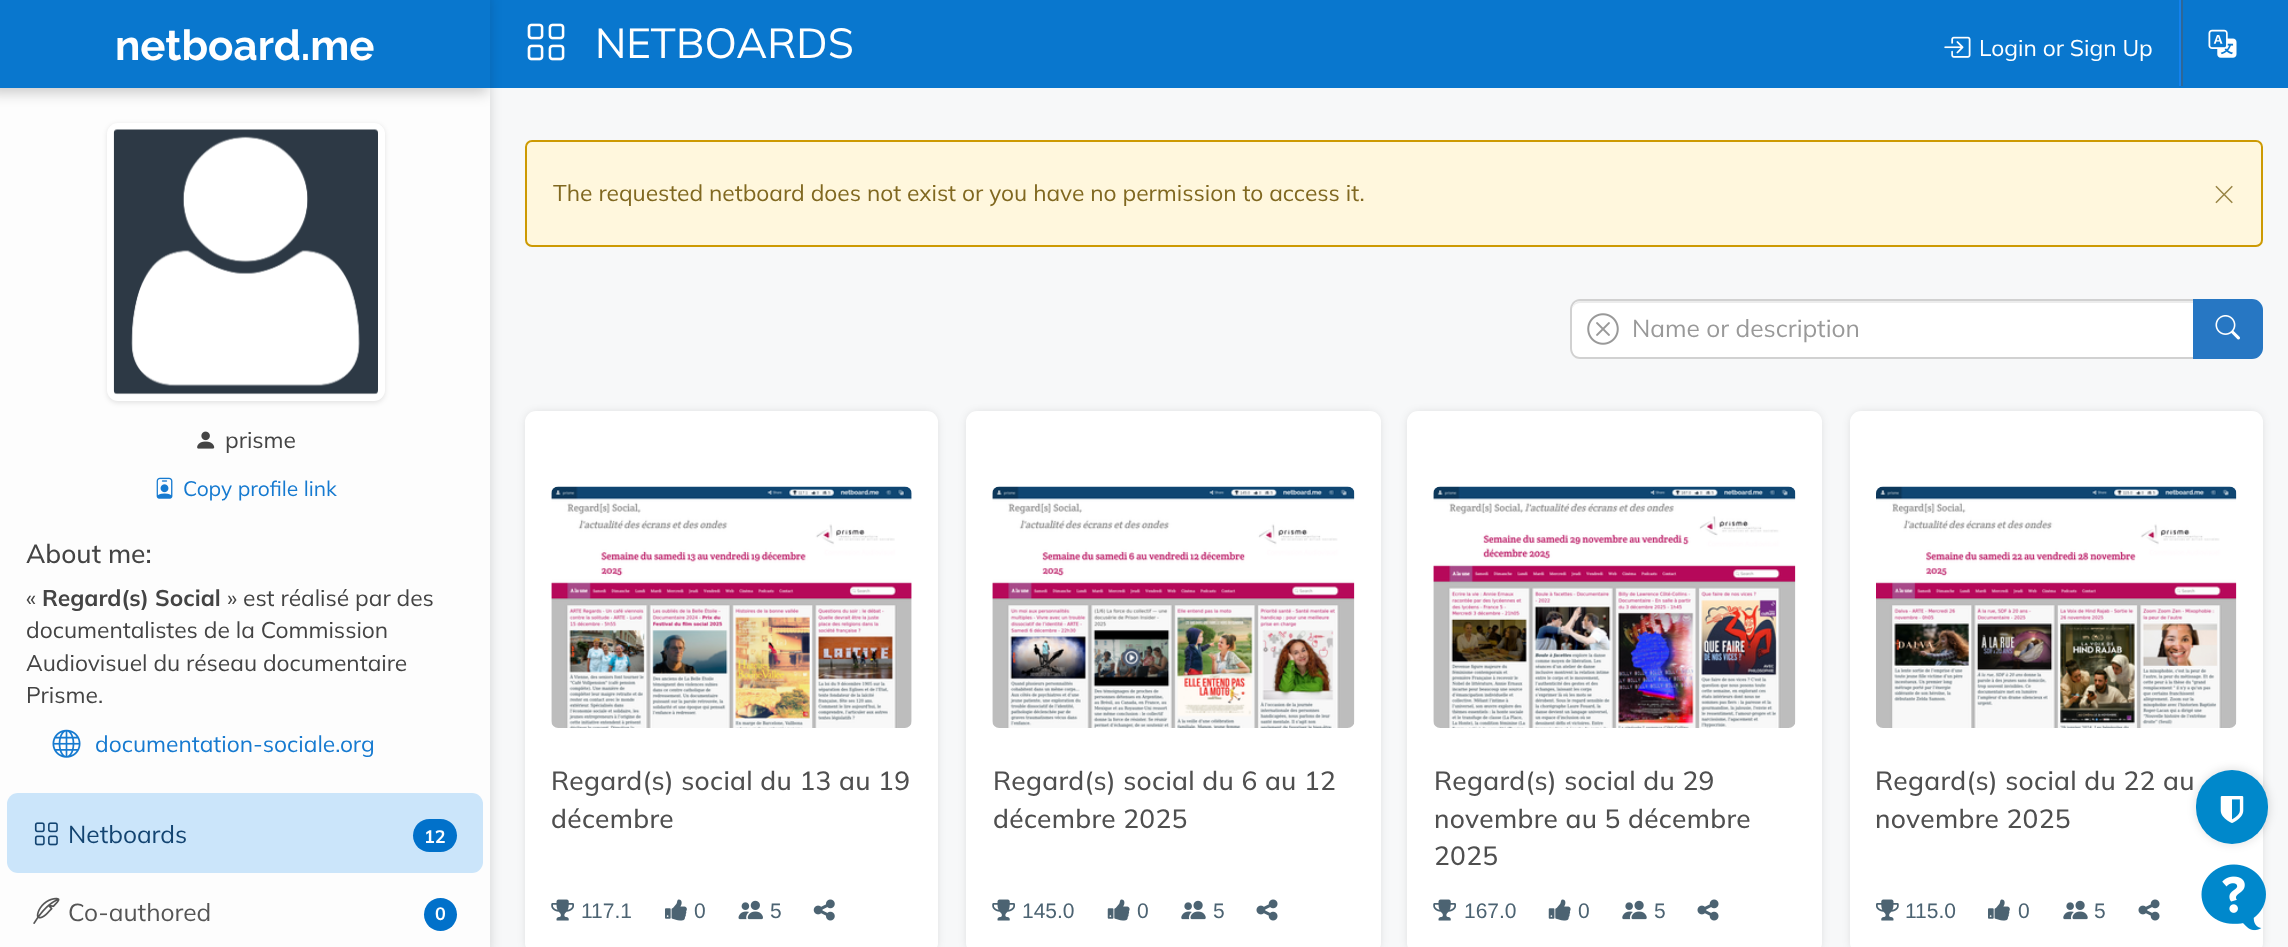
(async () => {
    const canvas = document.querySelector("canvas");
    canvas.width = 2288;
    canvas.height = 947;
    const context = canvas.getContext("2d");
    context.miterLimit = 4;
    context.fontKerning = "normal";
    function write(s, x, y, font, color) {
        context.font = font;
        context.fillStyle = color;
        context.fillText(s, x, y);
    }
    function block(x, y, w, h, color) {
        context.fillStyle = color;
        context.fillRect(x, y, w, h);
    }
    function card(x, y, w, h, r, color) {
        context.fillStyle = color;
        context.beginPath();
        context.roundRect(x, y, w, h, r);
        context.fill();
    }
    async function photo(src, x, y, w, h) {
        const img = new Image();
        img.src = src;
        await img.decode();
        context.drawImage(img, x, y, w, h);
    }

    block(0, 0, 2288, 947, "rgb(247, 248, 249)");
    block(490, 0, 1798, 88, "rgb(9, 119, 206)");
    await photo("media/1.png", 527, 23, 38, 38);
    write("NETBOARDS", 595, 58, "42px Mulish", "rgb(255, 255, 255)");
    await photo("media/2.png", 1944, 36, 27, 22);
    write("Login or Sign Up", 1979, 56, "22.75px Mulish", "rgb(255, 255, 255)");
    block(2181, 0, 2, 86, "rgb(46, 103, 151)");
    block(2179, 0, 2, 86, "rgb(18, 129, 239)");
    await photo("media/3.png", 2208, 29, 29, 29);
    context.fillStyle = "rgba(0, 0, 0, 0.2)";
    context.filter = "blur(7px)";
    context.beginPath();
    context.rect(-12, -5, 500, 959);
    context.fill();
    context.filter = "none";
    block(0, 88, 490, 859, "rgb(253, 253, 253)");
    context.save();
    context.beginPath();
    context.rect(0, 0, 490, 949);
    context.clip();
    context.fillStyle = "rgba(0, 0, 0, 0.2)";
    context.filter = "blur(7px)";
    context.beginPath();
    context.rect(-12, -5, 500, 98);
    context.fill();
    context.filter = "none";
    context.restore();
    block(0, 0, 490, 88, "rgb(9, 119, 206)");
    write("netboard.me", 115, 60, "bold 42px Raleway", "rgb(255, 255, 255)");
    context.fillStyle = "rgba(0, 0, 0, 0.1)";
    context.filter = "blur(2.5px)";
    context.beginPath();
    context.roundRect(107, 124, 278, 279, 11);
    context.fill();
    context.filter = "none";
    context.beginPath();
    context.roundRect(110.5, 126.5, 271, 271, 7.5);
    context.strokeStyle = "rgb(255, 255, 255)";
    context.lineWidth = 7;
    context.stroke();
    await photo("media/4.png", 113, 129, 265, 266);
    await photo("media/5.png", 197, 431, 18, 18);
    write("prisme", 225, 448, "22.75px Mulish", "rgb(68, 68, 68)");
    await photo("media/6.png", 156, 477, 17, 22);
    write("Copy profile link", 183, 496, "21px Mulish", "rgb(22, 122, 208)");
    write("About me:", 26, 563, "500 26.25px Mulish", "rgb(68, 68, 68)");
    write("«", 26, 606, "22.75px Mulish", "rgb(68, 68, 68)");
    write("Regard(s) Social", 42, 606, "bold 22.75px Mulish", "rgb(68, 68, 68)");
    write("» est réalisé par des", 227, 606, "22.75px Mulish", "rgb(68, 68, 68)");
    write("documentalistes de la Commission", 26, 638, "22.75px Mulish", "rgb(68, 68, 68)");
    write("Audiovisuel du réseau documentaire", 26, 671, "22.75px Mulish", "rgb(68, 68, 68)");
    write("Prisme.", 26, 703, "22.75px Mulish", "rgb(68, 68, 68)");
    await photo("media/7.png", 52, 729, 29, 29);
    write("documentation-sociale.org", 95, 752, "22.75px Mulish", "rgb(22, 122, 208)");
    card(7, 793, 476, 80, 11, "rgb(203, 229, 250)");
    await photo("media/8.png", 34, 822, 24, 24);
    write("Netboards", 68, 843, "24.5px Mulish", "rgb(19, 68, 113)");
    card(413, 819, 44, 33, 16.5, "rgb(1, 113, 202)");
    write("12", 424, 843, "bold 18px Mulish", "rgb(255, 255, 255)");
    await photo("media/9.png", 33, 897, 27, 27);
    write("Co-authored", 68, 921, "24.5px Mulish", "rgb(85, 85, 85)");
    context.fillStyle = "rgb(1, 113, 202)";
    context.beginPath();
    context.arc(440.5, 914.5, 16.5, 0, Math.PI * 2);
    context.fill();
    write("0", 435, 920, "bold 18px Mulish", "rgb(255, 255, 255)");
    context.fillStyle = "rgb(255, 247, 221)";
    context.beginPath();
    context.roundRect(526, 141, 1736, 105, 6);
    context.fill();
    context.strokeStyle = "rgb(205, 154, 3)";
    context.lineWidth = 2;
    context.stroke();
    write("The requested netboard does not exist or you have no permission to access it.", 553, 201, "22.75px Mulish", "rgb(128, 104, 32)");
    write("×", 2213, 205, "200 37px Mulish", "rgb(153, 133, 70)");
    context.fillStyle = "rgb(255, 255, 255)";
    context.beginPath();
    context.roundRect(1570, 299, 625, 60, [11, 0, 0, 11]);
    context.fill();
    context.fillStyle = "rgb(236, 236, 236)";
    context.beginPath();
    context.moveTo(1580, 303);
    context.lineTo(2194, 303);
    context.lineTo(2194, 357);
    context.lineTo(2195, 357);
    context.lineTo(2195, 301);
    context.lineTo(1581, 301);
    context.bezierCurveTo(1575, 301, 1572, 306, 1572, 312);
    context.bezierCurveTo(1572, 307, 1575, 303, 1580, 303);
    context.closePath();
    context.fill();
    context.fillStyle = "rgb(209, 209, 209)";
    context.beginPath();
    context.moveTo(1580, 299);
    context.lineTo(2194, 299);
    context.lineTo(2194, 359);
    context.lineTo(1580, 359);
    context.bezierCurveTo(1574, 359, 1570, 354, 1570, 348);
    context.lineTo(1570, 310);
    context.bezierCurveTo(1570, 304, 1574, 299, 1580, 299);
    context.closePath();
    context.moveTo(1580, 301);
    context.lineTo(2194, 301);
    context.lineTo(2194, 357);
    context.lineTo(1580, 357);
    context.bezierCurveTo(1575, 357, 1572, 353, 1572, 348);
    context.lineTo(1572, 310);
    context.bezierCurveTo(1572, 305, 1575, 301, 1580, 301);
    context.closePath();
    context.fill("evenodd");
    await photo("media/10.png", 1587, 313, 32, 32);
    write("Name or description", 1632, 337, "24.5px Mulish", "rgb(153, 153, 153)");
    context.fillStyle = "rgb(39, 119, 195)";
    context.beginPath();
    context.roundRect(2194, 300, 68, 58, [0, 10, 10, 0]);
    context.fill();
    context.strokeStyle = "rgb(39, 119, 195)";
    context.stroke();
    await photo("media/11.png", 2215, 315, 25, 25);
    context.fillStyle = "rgba(0, 0, 0, 0.15)";
    context.filter = "blur(5px)";
    context.beginPath();
    context.roundRect(527, 413, 409, 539, 9);
    context.fill();
    context.filter = "none";
    card(525, 411, 413, 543, 11, "rgb(255, 255, 255)");
    await photo("media/12.png", 551, 486, 361, 242);
    context.letterSpacing = "0.35px";
    write("Regard(s) social du 13 au 19", 551, 790, "500 26.25px Mulish", "rgb(79, 79, 79)");
    write("décembre", 551, 828, "500 26.25px Mulish", "rgb(79, 79, 79)");
    await photo("media/13.png", 551, 899, 23, 22);
    context.letterSpacing = "0px";
    write("117.1", 581, 918, "21px Liberation Sans", "rgb(76, 99, 114)");
    await photo("media/14.png", 665, 899, 22, 22);
    write("0", 694, 918, "21px Liberation Sans", "rgb(76, 99, 114)");
    await photo("media/15.png", 738, 900, 25, 20);
    write("5", 770, 918, "21px Liberation Sans", "rgb(76, 99, 114)");
    await photo("media/16.png", 813, 899, 22, 22);
    context.fillStyle = "rgba(0, 0, 0, 0.15)";
    context.filter = "blur(5px)";
    context.beginPath();
    context.roundRect(968, 413, 411, 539, 9);
    context.fill();
    context.filter = "none";
    card(966, 411, 415, 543, 11, "rgb(255, 255, 255)");
    await photo("media/17.png", 992, 486, 363, 242);
    context.letterSpacing = "0.35px";
    write("Regard(s) social du 6 au 12", 993, 790, "500 26.25px Mulish", "rgb(79, 79, 79)");
    write("décembre 2025", 993, 828, "500 26.25px Mulish", "rgb(79, 79, 79)");
    await photo("media/13.png", 992, 899, 23, 22);
    context.letterSpacing = "0px";
    write("145.0", 1022, 918, "21px Liberation Sans", "rgb(76, 99, 114)");
    await photo("media/18.png", 1107, 899, 23, 22);
    write("0", 1137, 918, "21px Liberation Sans", "rgb(76, 99, 114)");
    await photo("media/19.png", 1181, 900, 25, 20);
    write("5", 1213, 918, "21px Liberation Sans", "rgb(76, 99, 114)");
    await photo("media/20.png", 1256, 899, 22, 22);
    context.fillStyle = "rgba(0, 0, 0, 0.15)";
    context.filter = "blur(5px)";
    context.beginPath();
    context.roundRect(1409, 413, 411, 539, 9);
    context.fill();
    context.filter = "none";
    card(1407, 411, 415, 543, 11, "rgb(255, 255, 255)");
    await photo("media/21.png", 1433, 486, 363, 242);
    context.letterSpacing = "0.35px";
    write("Regard(s) social du 29", 1434, 790, "500 26.25px Mulish", "rgb(79, 79, 79)");
    write("novembre au 5 décembre", 1434, 828, "500 26.25px Mulish", "rgb(79, 79, 79)");
    write("2025", 1434, 865, "500 26.25px Mulish", "rgb(79, 79, 79)");
    await photo("media/13.png", 1433, 899, 23, 22);
    context.letterSpacing = "0px";
    write("167.0", 1464, 918, "21px Liberation Sans", "rgb(76, 99, 114)");
    await photo("media/18.png", 1548, 899, 23, 22);
    write("0", 1578, 918, "21px Liberation Sans", "rgb(76, 99, 114)");
    await photo("media/19.png", 1622, 900, 25, 20);
    write("5", 1654, 918, "21px Liberation Sans", "rgb(76, 99, 114)");
    await photo("media/20.png", 1697, 899, 22, 22);
    context.fillStyle = "rgba(0, 0, 0, 0.15)";
    context.filter = "blur(5px)";
    context.beginPath();
    context.roundRect(1852, 413, 409, 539, 9);
    context.fill();
    context.filter = "none";
    card(1850, 411, 413, 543, 11, "rgb(255, 255, 255)");
    await photo("media/22.png", 1876, 486, 361, 242);
    context.letterSpacing = "0.35px";
    write("Regard(s) social du 22 au", 1875, 790, "500 26.25px Mulish", "rgb(79, 79, 79)");
    write("novembre 2025", 1875, 828, "500 26.25px Mulish", "rgb(79, 79, 79)");
    await photo("media/23.png", 1876, 899, 23, 22);
    context.letterSpacing = "0px";
    write("115.0", 1905, 918, "21px Liberation Sans", "rgb(76, 99, 114)");
    await photo("media/14.png", 1988, 899, 22, 22);
    write("0", 2018, 918, "21px Liberation Sans", "rgb(76, 99, 114)");
    await photo("media/19.png", 2063, 900, 25, 20);
    write("5", 2094, 918, "21px Liberation Sans", "rgb(76, 99, 114)");
    await photo("media/20.png", 2138, 899, 22, 22);
    context.fillStyle = "rgba(0, 0, 0, 0.1)";
    context.filter = "blur(4.5px)";
    context.beginPath();
    context.roundRect(2195, 768, 75, 77, 37.5);
    context.fill();
    context.filter = "none";
    card(2196, 770, 72, 74, 36, "rgb(0, 136, 203)");
    await photo("media/24.png", 2220, 796, 24, 27);
    await photo("media/25.png", 2201, 864, 65, 67);
})();
